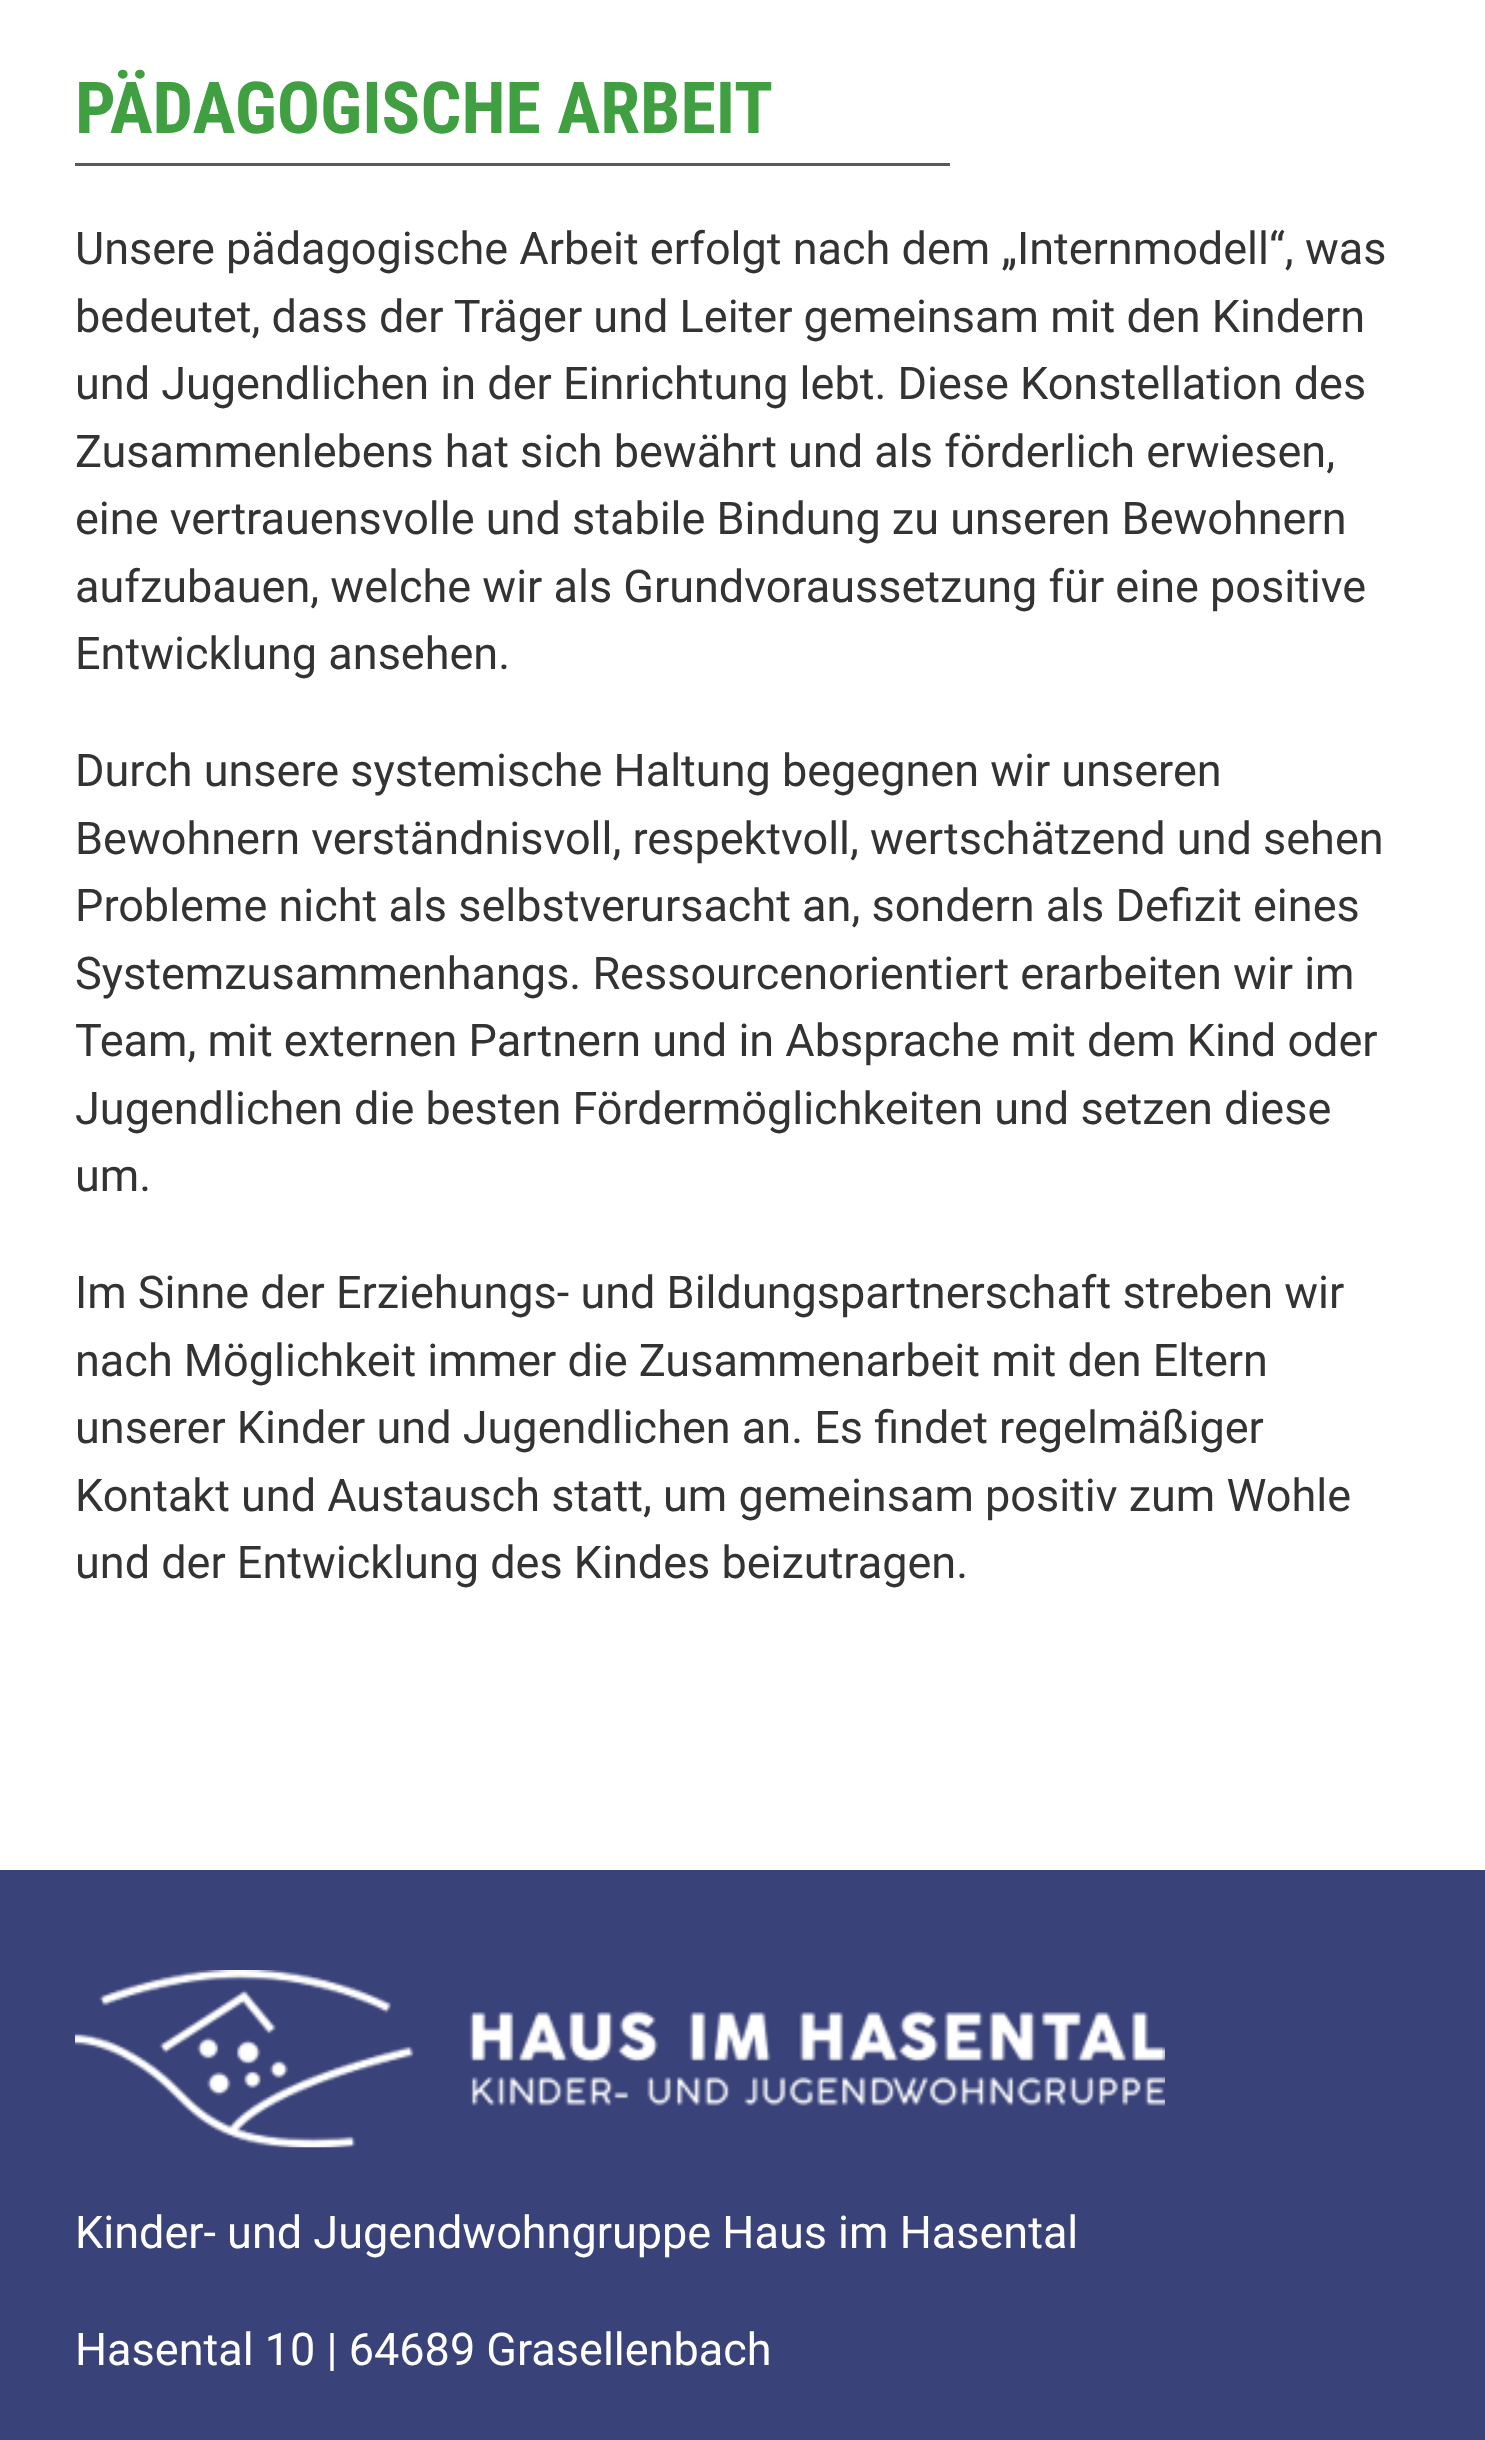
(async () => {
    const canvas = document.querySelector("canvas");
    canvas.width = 1485;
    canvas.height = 2440;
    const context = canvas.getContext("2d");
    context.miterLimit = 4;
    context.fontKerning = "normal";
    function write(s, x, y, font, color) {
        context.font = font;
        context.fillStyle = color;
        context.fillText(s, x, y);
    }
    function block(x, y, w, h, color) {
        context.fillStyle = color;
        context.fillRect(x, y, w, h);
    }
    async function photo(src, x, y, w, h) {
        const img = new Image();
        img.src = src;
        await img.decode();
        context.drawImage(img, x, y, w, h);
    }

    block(0, 0, 1485, 2440, "rgb(255, 255, 255)");
    write("PÄDAGOGISCHE ARBEIT", 75, 133, "bold 71.9px Roboto Condensed", "rgb(64, 160, 65)");
    block(75, 163, 875, 3, "rgb(89, 89, 89)");
    write("Unsere pädagogische Arbeit erfolgt nach dem „Internmodell“, was", 75, 264, "45px Roboto", "rgb(51, 51, 51)");
    write("bedeutet, dass der Träger und Leiter gemeinsam mit den Kindern", 75, 332, "45px Roboto", "rgb(51, 51, 51)");
    write("und Jugendlichen in der Einrichtung lebt. Diese Konstellation des", 75, 399, "45px Roboto", "rgb(51, 51, 51)");
    write("Zusammenlebens hat sich bewährt und als förderlich erwiesen,", 75, 467, "45px Roboto", "rgb(51, 51, 51)");
    write("eine vertrauensvolle und stabile Bindung zu unseren Bewohnern", 75, 534, "45px Roboto", "rgb(51, 51, 51)");
    write("aufzubauen, welche wir als Grundvoraussetzung für eine positive", 75, 602, "45px Roboto", "rgb(51, 51, 51)");
    write("Entwicklung ansehen.", 75, 669, "45px Roboto", "rgb(51, 51, 51)");
    write("Durch unsere systemische Haltung begegnen wir unseren", 75, 786, "45px Roboto", "rgb(51, 51, 51)");
    write("Bewohnern verständnisvoll, respektvoll, wertschätzend und sehen", 75, 854, "45px Roboto", "rgb(51, 51, 51)");
    write("Probleme nicht als selbstverursacht an, sondern als Defizit eines", 75, 921, "45px Roboto", "rgb(51, 51, 51)");
    write("Systemzusammenhangs. Ressourcenorientiert erarbeiten wir im", 75, 989, "45px Roboto", "rgb(51, 51, 51)");
    write("Team, mit externen Partnern und in Absprache mit dem Kind oder", 75, 1056, "45px Roboto", "rgb(51, 51, 51)");
    write("Jugendlichen die besten Fördermöglichkeiten und setzen diese", 75, 1124, "45px Roboto", "rgb(51, 51, 51)");
    write("um.", 75, 1191, "45px Roboto", "rgb(51, 51, 51)");
    write("Im Sinne der Erziehungs- und Bildungspartnerschaft streben wir", 75, 1308, "45px Roboto", "rgb(51, 51, 51)");
    write("nach Möglichkeit immer die Zusammenarbeit mit den Eltern", 75, 1376, "45px Roboto", "rgb(51, 51, 51)");
    write("unserer Kinder und Jugendlichen an. Es findet regelmäßiger", 75, 1443, "45px Roboto", "rgb(51, 51, 51)");
    write("Kontakt und Austausch statt, um gemeinsam positiv zum Wohle", 75, 1511, "45px Roboto", "rgb(51, 51, 51)");
    write("und der Entwicklung des Kindes beizutragen.", 75, 1578, "45px Roboto", "rgb(51, 51, 51)");
    block(0, 1870, 1485, 570, "rgb(57, 66, 121)");
    await photo("media/1.png", 75, 1970, 1090, 178);
    write("Kinder- und Jugendwohngruppe Haus im Hasental", 75, 2248, "45px Roboto", "rgb(255, 255, 255)");
    write("Hasental 10 | 64689 Grasellenbach", 75, 2365, "45px Roboto", "rgb(255, 255, 255)");
})();
